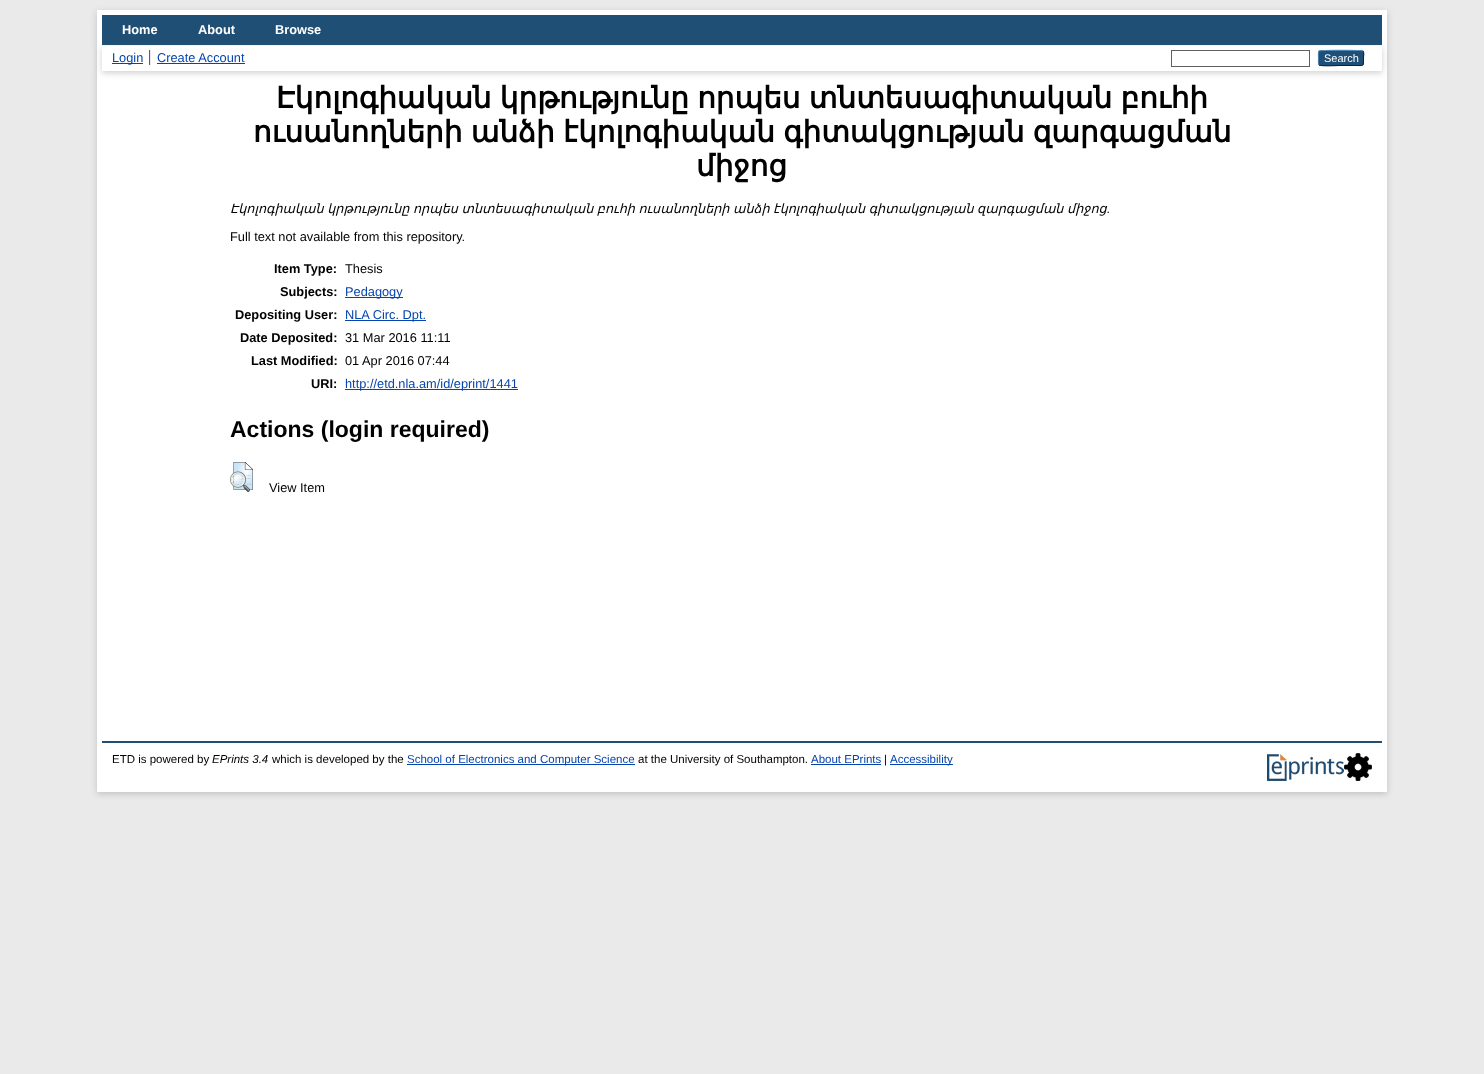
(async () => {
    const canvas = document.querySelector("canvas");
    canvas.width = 1484;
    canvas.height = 1074;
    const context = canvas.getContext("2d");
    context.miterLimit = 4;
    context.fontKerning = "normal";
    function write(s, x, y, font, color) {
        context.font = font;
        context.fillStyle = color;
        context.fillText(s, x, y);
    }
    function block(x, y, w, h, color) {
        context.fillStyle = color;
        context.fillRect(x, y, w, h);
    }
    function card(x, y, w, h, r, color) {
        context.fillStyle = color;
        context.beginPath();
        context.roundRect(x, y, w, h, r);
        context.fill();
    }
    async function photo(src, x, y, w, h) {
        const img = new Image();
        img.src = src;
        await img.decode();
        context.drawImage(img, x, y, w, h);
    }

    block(0, 0, 1484, 1074, "rgb(234, 234, 234)");
    context.fillStyle = "rgba(100, 100, 100, 0.3)";
    context.filter = "blur(3px)";
    context.beginPath();
    context.rect(97, 12, 1290, 782);
    context.fill();
    context.filter = "none";
    block(97, 10, 1290, 782, "rgb(255, 255, 255)");
    block(102, 15, 1280, 30, "rgb(32, 79, 118)");
    write("Home", 122, 34, "bold 12.8px Liberation Sans", "rgb(255, 255, 255)");
    write("About", 198, 34, "bold 12.8px Liberation Sans", "rgb(255, 255, 255)");
    write("Browse", 275, 34, "bold 12.8px Liberation Sans", "rgb(255, 255, 255)");
    context.fillStyle = "rgba(100, 100, 100, 0.3)";
    context.filter = "blur(3px)";
    context.beginPath();
    context.rect(102, 48, 1280, 25);
    context.fill();
    context.filter = "none";
    block(102, 46, 1280, 25, "rgb(255, 255, 255)");
    block(112, 63, 31, 1, "rgb(6, 69, 173)");
    write("Login", 112, 62, "12.8px Liberation Sans", "rgb(6, 69, 173)");
    block(149, 50, 1, 15, "rgb(96, 96, 96)");
    write("Create Account", 157, 62, "12.8px Liberation Sans", "rgb(6, 69, 173)");
    block(150, 50, 1, 15, "rgb(232, 232, 232)");
    block(157, 63, 88, 1, "rgb(6, 69, 173)");
    context.strokeStyle = "rgb(96, 96, 96)";
    context.strokeRect(1171.5, 50.5, 138, 16);
    card(1318, 50, 46, 16, 3, "rgb(31, 79, 118)");
    context.beginPath();
    context.moveTo(1319, 51);
    context.bezierCurveTo(1320.5, 50, 1361.5, 50, 1363, 51);
    context.strokeStyle = "rgb(91, 151, 199)";
    context.stroke();
    context.beginPath();
    context.moveTo(1363, 51);
    context.bezierCurveTo(1364.5, 53, 1363.5, 56, 1363.5, 58);
    context.bezierCurveTo(1363.5, 67, 1364, 65.5, 1354.5, 65.5);
    context.lineTo(1341, 65.5);
    context.bezierCurveTo(1337.5, 65.5, 1321, 66.5, 1319, 65);
    context.strokeStyle = "rgb(13, 33, 49)";
    context.stroke();
    context.beginPath();
    context.moveTo(1319, 65);
    context.bezierCurveTo(1318, 63.5, 1318.5, 59.5, 1318.5, 58);
    context.bezierCurveTo(1318.5, 56.5, 1318, 52.5, 1319, 51);
    context.strokeStyle = "rgb(82, 135, 179)";
    context.stroke();
    write("Search", 1324, 62, "11px Liberation Sans", "rgb(255, 255, 255)");
    context.wordSpacing = "-1px";
    write("Էկոլոգիական կրթությունը որպես տնտեսագիտական բուհի", 276, 108, "bold 29.45px DejaVu Sans", "rgb(0, 0, 0)");
    write("ուսանողների անձի էկոլոգիական գիտակցության զարգացման", 253, 142, "bold 29.45px DejaVu Sans", "rgb(0, 0, 0)");
    context.wordSpacing = "0px";
    write("միջոց", 696, 176, "bold 29.45px DejaVu Sans", "rgb(0, 0, 0)");
    context.wordSpacing = "-0.5px";
    write("Էկոլոգիական կրթությունը որպես տնտեսագիտական բուհի ուսանողների անձի էկոլոգիական գիտակցության զարգացման միջոց", 230, 213, "italic 12.8px DejaVu Sans", "rgb(0, 0, 0)");
    context.wordSpacing = "0px";
    write(".", 1107, 213, "italic 12.8px Liberation Sans", "rgb(0, 0, 0)");
    write("Full text not available from this repository.", 230, 241, "12.8px Liberation Sans", "rgb(0, 0, 0)");
    write("Item Type:", 274, 273, "bold 12.8px Liberation Sans", "rgb(0, 0, 0)");
    write("Thesis", 345, 273, "12.8px Liberation Sans", "rgb(0, 0, 0)");
    write("Subjects:", 280, 296, "bold 12.8px Liberation Sans", "rgb(0, 0, 0)");
    block(345, 297, 58, 1, "rgb(6, 69, 173)");
    write("Pedagogy", 345, 296, "12.8px Liberation Sans", "rgb(6, 69, 173)");
    write("Depositing User:", 235, 319, "bold 12.8px Liberation Sans", "rgb(0, 0, 0)");
    block(345, 320, 81, 1, "rgb(6, 69, 173)");
    write("NLA Circ. Dpt.", 345, 319, "12.8px Liberation Sans", "rgb(6, 69, 173)");
    write("Date Deposited:", 240, 342, "bold 12.8px Liberation Sans", "rgb(0, 0, 0)");
    write("31 Mar 2016 11:11", 345, 342, "12.8px Liberation Sans", "rgb(0, 0, 0)");
    write("Last Modified:", 251, 365, "bold 12.8px Liberation Sans", "rgb(0, 0, 0)");
    write("01 Apr 2016 07:44", 345, 365, "12.8px Liberation Sans", "rgb(0, 0, 0)");
    write("URI:", 311, 388, "bold 12.8px Liberation Sans", "rgb(0, 0, 0)");
    block(345, 389, 173, 1, "rgb(6, 69, 173)");
    write("http://etd.nla.am/id/eprint/1441", 345, 388, "12.8px Liberation Sans", "rgb(6, 69, 173)");
    write("Actions (login required)", 230, 437, "bold 23px Liberation Sans", "rgb(0, 0, 0)");
    await photo("media/1.png", 230, 462, 23, 30);
    write("View Item", 269, 492, "12.8px Liberation Sans", "rgb(0, 0, 0)");
    block(102, 741, 1280, 2, "rgb(32, 79, 118)");
    write("ETD is powered by", 112, 763, "11.5px Liberation Sans", "rgb(0, 0, 0)");
    write("EPrints 3.4", 212, 763, "italic 11.5px Liberation Sans", "rgb(0, 0, 0)");
    write("which is developed by the", 272, 763, "11.5px Liberation Sans", "rgb(0, 0, 0)");
    block(407, 764, 228, 1, "rgb(6, 69, 173)");
    write("School of Electronics and Computer Science", 407, 763, "11.5px Liberation Sans", "rgb(6, 69, 173)");
    write("at the University of Southampton.", 638, 763, "11.5px Liberation Sans", "rgb(0, 0, 0)");
    write("About EPrints", 811, 763, "11.5px Liberation Sans", "rgb(6, 69, 173)");
    block(811, 764, 70, 1, "rgb(6, 69, 173)");
    write("|", 884, 763, "11.5px Liberation Sans", "rgb(0, 0, 0)");
    block(890, 764, 63, 1, "rgb(6, 69, 173)");
    write("Accessibility", 890, 763, "11.5px Liberation Sans", "rgb(6, 69, 173)");
    await photo("media/2.png", 1267, 754, 77, 27);
    await photo("media/3.png", 1344, 753, 28, 28);
})();
